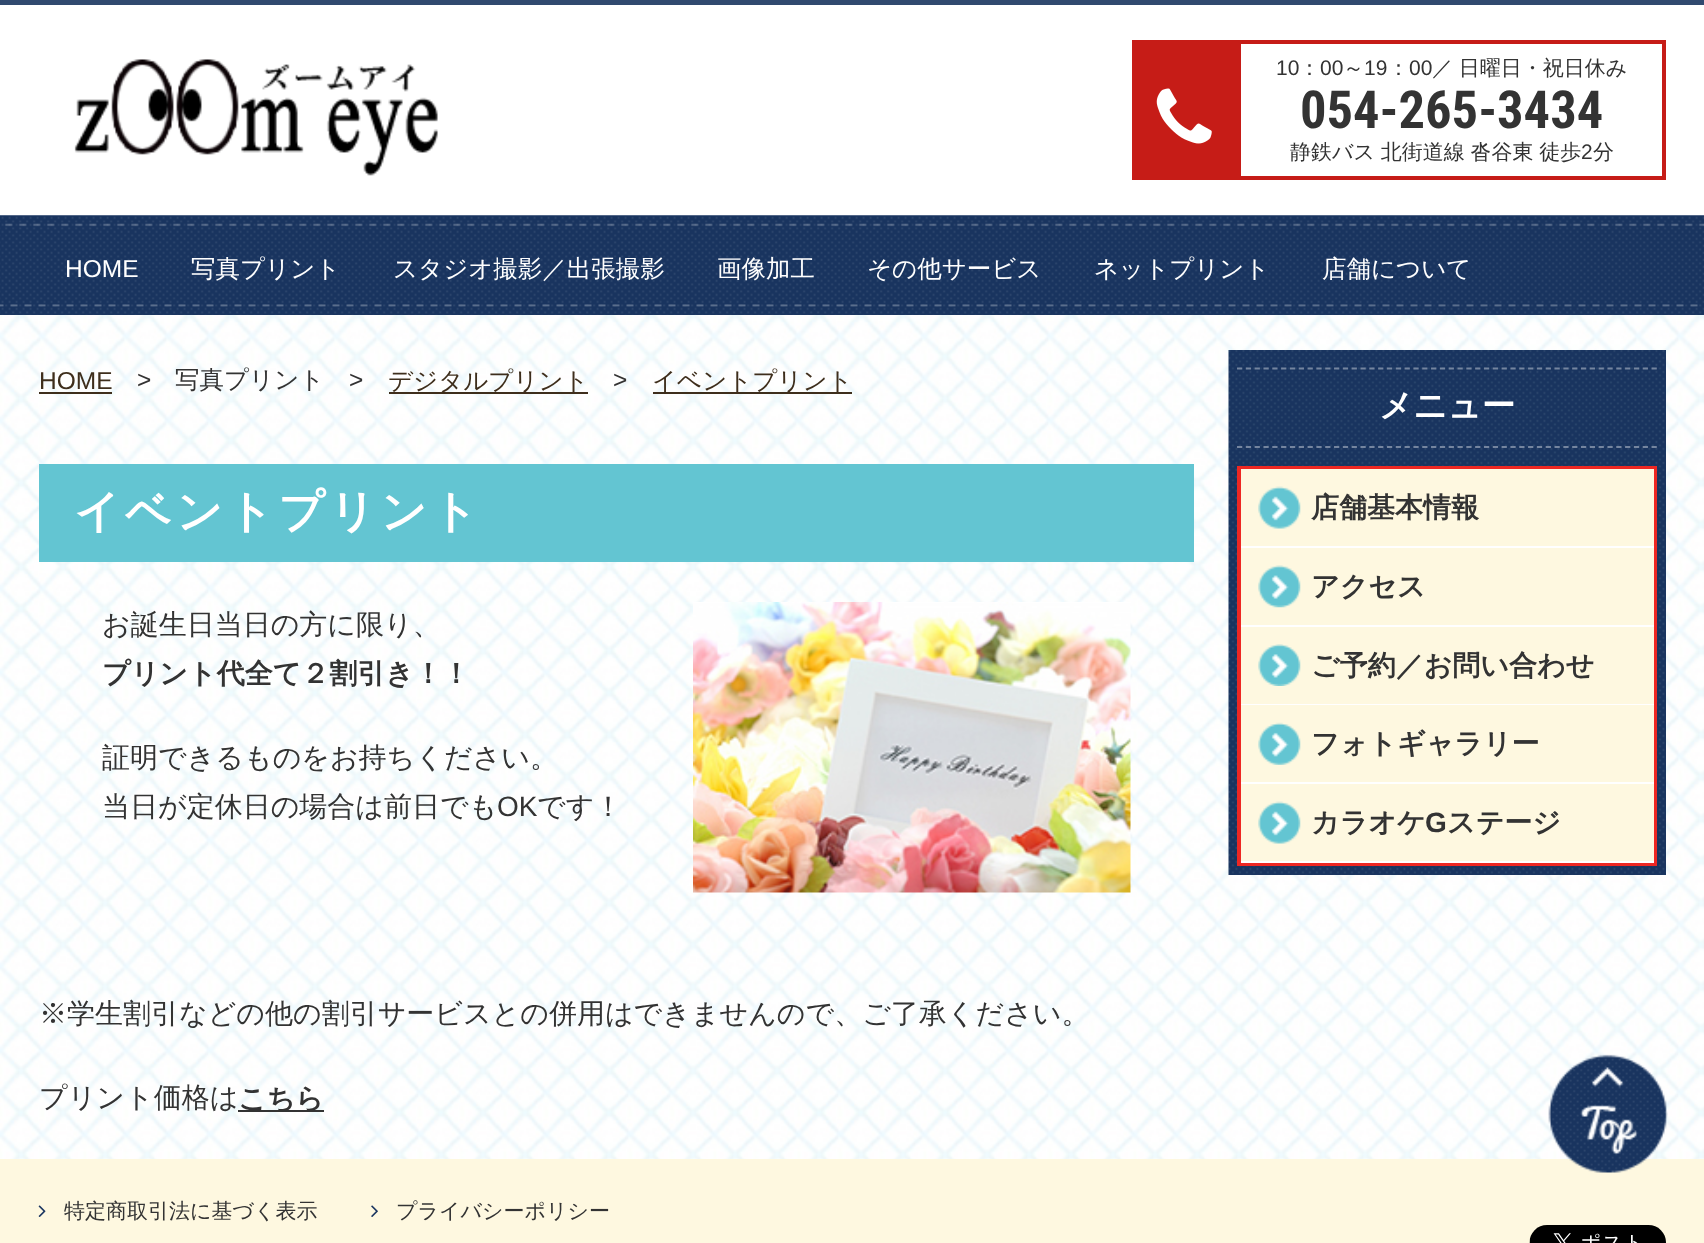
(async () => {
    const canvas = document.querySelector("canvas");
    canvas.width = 1704;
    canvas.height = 1243;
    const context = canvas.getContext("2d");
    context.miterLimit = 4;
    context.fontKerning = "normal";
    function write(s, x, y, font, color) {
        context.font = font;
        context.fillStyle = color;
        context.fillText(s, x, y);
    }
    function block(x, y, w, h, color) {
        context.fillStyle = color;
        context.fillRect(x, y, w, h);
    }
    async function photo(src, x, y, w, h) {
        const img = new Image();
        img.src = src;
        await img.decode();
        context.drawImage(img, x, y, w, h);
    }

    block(0, 0, 1704, 1243, "rgb(255, 255, 255)");
    await photo("media/1.png", 0, 215, 1704, 944);
    block(0, 0, 1704, 5, "rgb(48, 73, 111)");
    await photo("media/2.png", 74, 59, 364, 117);
    block(1132, 40, 105, 140, "rgb(198, 28, 23)");
    await photo("media/3.png", 1156, 88, 56, 56);
    context.strokeStyle = "rgb(198, 28, 23)";
    context.lineWidth = 4;
    context.strokeRect(1239, 42, 425, 136);
    write("10", 1276, 75, "21px Liberation Sans", "rgb(51, 51, 51)");
    write("：", 1299, 75, "500 21px WenQuanYi Zen Hei", "rgb(51, 51, 51)");
    write("00", 1320, 75, "21px Liberation Sans", "rgb(51, 51, 51)");
    write("～", 1343, 75, "500 21px WenQuanYi Zen Hei", "rgb(51, 51, 51)");
    write("19", 1364, 75, "21px Liberation Sans", "rgb(51, 51, 51)");
    write("：", 1388, 75, "500 21px WenQuanYi Zen Hei", "rgb(51, 51, 51)");
    write("00", 1409, 75, "21px Liberation Sans", "rgb(51, 51, 51)");
    context.wordSpacing = "-0.5px";
    write("／ 日曜日・祝日休み", 1432, 75, "500 21px WenQuanYi Zen Hei", "rgb(51, 51, 51)");
    context.wordSpacing = "0px";
    write("054-265-3434", 1300, 128, "bold 52.5px Roboto Condensed", "rgb(51, 51, 51)");
    context.wordSpacing = "-0.5px";
    write("静鉄バス 北街道線 沓谷東 徒歩", 1290, 159, "500 21px WenQuanYi Zen Hei", "rgb(51, 51, 51)");
    context.wordSpacing = "0px";
    write("2", 1581, 159, "21px Liberation Sans", "rgb(51, 51, 51)");
    write("分", 1593, 159, "500 21px WenQuanYi Zen Hei", "rgb(51, 51, 51)");
    await photo("media/4.png", 0, 215, 1704, 100);
    write("HOME", 65, 277, "24.5px Liberation Sans", "rgb(255, 255, 255)");
    write("写真プリント", 191, 277, "500 24.5px WenQuanYi Zen Hei", "rgb(255, 255, 255)");
    write("スタジオ撮影／出張撮影", 393, 277, "500 24.5px WenQuanYi Zen Hei", "rgb(255, 255, 255)");
    write("画像加工", 717, 277, "500 24.5px WenQuanYi Zen Hei", "rgb(255, 255, 255)");
    write("その他サービス", 867, 277, "500 24.5px WenQuanYi Zen Hei", "rgb(255, 255, 255)");
    write("ネットプリント", 1094, 277, "500 24.5px WenQuanYi Zen Hei", "rgb(255, 255, 255)");
    write("店舗について", 1322, 277, "500 24.5px WenQuanYi Zen Hei", "rgb(255, 255, 255)");
    write("HOME", 39, 389, "24.5px Liberation Sans", "rgb(62, 46, 28)");
    block(39, 392, 73, 2, "rgb(62, 46, 28)");
    write(">", 137, 388, "24.5px Liberation Sans", "rgb(51, 51, 51)");
    write("写真プリント", 175, 388, "500 24.5px WenQuanYi Zen Hei", "rgb(51, 51, 51)");
    write(">", 349, 388, "24.5px Liberation Sans", "rgb(51, 51, 51)");
    block(389, 392, 199, 2, "rgb(62, 46, 28)");
    write("デジタルプリント", 388, 389, "500 24.5px WenQuanYi Zen Hei", "rgb(62, 46, 28)");
    write(">", 613, 388, "24.5px Liberation Sans", "rgb(51, 51, 51)");
    block(653, 392, 199, 2, "rgb(62, 46, 28)");
    write("イベントプリント", 652, 389, "500 24.5px WenQuanYi Zen Hei", "rgb(62, 46, 28)");
    block(39, 464, 1155, 98, "rgb(99, 197, 210)");
    context.letterSpacing = "4.5px";
    write("イベントプリント", 74, 527, "bold 45.5px WenQuanYi Zen Hei", "rgb(255, 255, 255)");
    context.letterSpacing = "0px";
    write("お誕生日当日の方に限り、", 102, 634, "500 28px WenQuanYi Zen Hei", "rgb(51, 51, 51)");
    write("プリント代全て２割引き！！", 102, 683, "bold 28px WenQuanYi Zen Hei", "rgb(51, 51, 51)");
    write("証明できるものをお持ちください。", 102, 767, "500 28px WenQuanYi Zen Hei", "rgb(51, 51, 51)");
    write("当日が定休日の場合は前日でも", 102, 816, "500 28px WenQuanYi Zen Hei", "rgb(51, 51, 51)");
    write("OK", 497, 816, "28px Liberation Sans", "rgb(51, 51, 51)");
    write("です！", 537, 816, "500 28px WenQuanYi Zen Hei", "rgb(51, 51, 51)");
    await photo("media/5.png", 693, 602, 438, 291);
    write("※学生割引などの他の割引サービスとの併用はできませんので、ご了承ください。", 39, 1023, "500 28px WenQuanYi Zen Hei", "rgb(51, 51, 51)");
    write("プリント価格は", 39, 1107, "500 28px WenQuanYi Zen Hei", "rgb(51, 51, 51)");
    block(238, 1110, 86, 2, "rgb(51, 51, 51)");
    write("こちら", 238, 1108, "bold 28px WenQuanYi Zen Hei", "rgb(51, 51, 51)");
    await photo("media/6.png", 1228, 350, 438, 525);
    context.beginPath();
    context.moveTo(1237, 368.5);
    context.lineTo(1657, 368.5);
    context.strokeStyle = "rgb(117, 133, 159)";
    context.lineWidth = 1.8;
    context.setLineDash([5.25, 3.57]);
    context.stroke();
    context.beginPath();
    context.moveTo(1237, 447);
    context.lineTo(1657, 447);
    context.stroke();
    write("メニュー", 1379, 417, "bold 33.5px WenQuanYi Zen Hei", "rgb(255, 255, 255)");
    context.strokeStyle = "rgb(238, 39, 34)";
    context.lineWidth = 4;
    context.setLineDash([]);
    context.strokeRect(1239, 468, 416, 396);
    block(1241, 469, 413, 77, "rgb(254, 248, 224)");
    block(1241, 546, 413, 2, "rgb(255, 255, 255)");
    await photo("media/7.png", 1258, 486, 43, 43);
    write("店舗基本情報", 1311, 517, "bold 28px WenQuanYi Zen Hei", "rgb(51, 51, 51)");
    block(1241, 548, 413, 77, "rgb(254, 248, 224)");
    block(1241, 625, 413, 2, "rgb(255, 255, 255)");
    await photo("media/8.png", 1258, 565, 43, 43);
    write("アクセス", 1311, 596, "bold 28px WenQuanYi Zen Hei", "rgb(51, 51, 51)");
    block(1241, 627, 413, 77, "rgb(254, 248, 224)");
    block(1241, 704, 413, 1, "rgb(255, 255, 255)");
    await photo("media/9.png", 1258, 644, 43, 42);
    write("ご予約／お問い合わせ", 1311, 675, "bold 28px WenQuanYi Zen Hei", "rgb(51, 51, 51)");
    block(1241, 705, 413, 77, "rgb(254, 248, 224)");
    block(1241, 782, 413, 2, "rgb(255, 255, 255)");
    await photo("media/10.png", 1258, 722, 43, 43);
    write("フォトギャラリー", 1311, 753, "bold 28px WenQuanYi Zen Hei", "rgb(51, 51, 51)");
    block(1241, 784, 413, 77, "rgb(254, 248, 224)");
    block(1241, 861, 413, 2, "rgb(255, 255, 255)");
    await photo("media/7.png", 1258, 801, 43, 43);
    write("カラオケ", 1311, 832, "bold 28px WenQuanYi Zen Hei", "rgb(51, 51, 51)");
    write("G", 1425, 832, "bold 28px Liberation Sans", "rgb(51, 51, 51)");
    write("ステージ", 1447, 832, "bold 28px WenQuanYi Zen Hei", "rgb(51, 51, 51)");
    block(0, 1159, 1704, 84, "rgb(254, 248, 224)");
    await photo("media/11.png", 1548, 1054, 120, 119);
    await photo("media/12.png", 38, 1205, 8, 12);
    write("特定商取引法に基づく表示", 64, 1218, "500 21px WenQuanYi Zen Hei", "rgb(51, 51, 51)");
    await photo("media/13.png", 371, 1205, 7, 12);
    write("プライバシーポリシー", 396, 1218, "500 21px WenQuanYi Zen Hei", "rgb(51, 51, 51)");
    await photo("media/14.png", 1529, 1225, 137, 18);
})();
